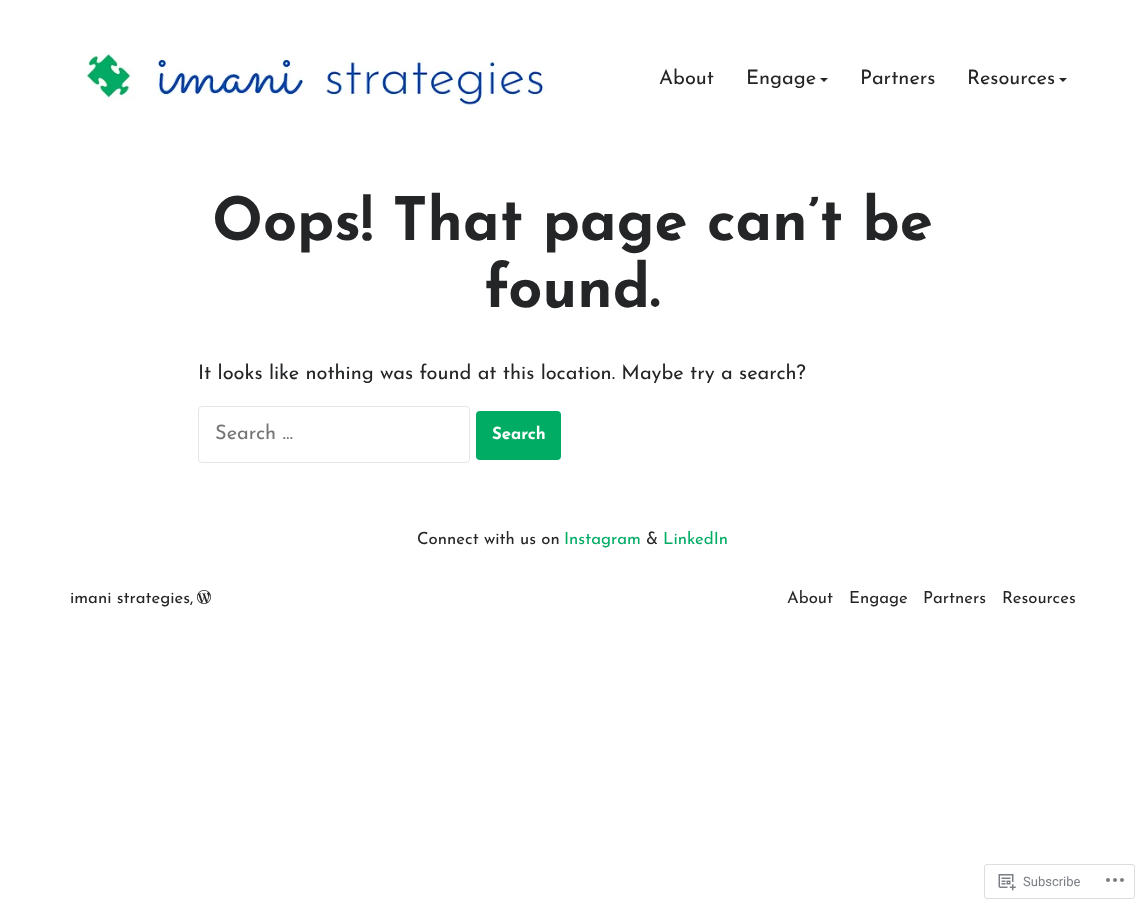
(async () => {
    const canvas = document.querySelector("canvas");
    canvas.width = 1145;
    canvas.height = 909;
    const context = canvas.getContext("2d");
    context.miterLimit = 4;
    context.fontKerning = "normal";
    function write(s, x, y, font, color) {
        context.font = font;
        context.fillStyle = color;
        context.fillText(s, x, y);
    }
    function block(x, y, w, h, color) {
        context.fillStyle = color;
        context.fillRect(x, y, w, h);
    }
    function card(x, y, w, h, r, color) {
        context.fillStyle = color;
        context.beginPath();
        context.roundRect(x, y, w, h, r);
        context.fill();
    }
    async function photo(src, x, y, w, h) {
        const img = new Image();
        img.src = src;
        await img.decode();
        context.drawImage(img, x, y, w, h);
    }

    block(0, 0, 1145, 909, "rgb(255, 255, 255)");
    await photo("media/1.png", 86, 53, 462, 56);
    write("About", 659, 84, "20px Josefin Sans", "rgb(36, 37, 39)");
    write("Engage", 746, 84, "20px Josefin Sans", "rgb(36, 37, 39)");
    context.beginPath();
    context.moveTo(820, 78);
    context.lineTo(828, 78);
    context.lineTo(824, 82);
    context.closePath();
    context.fill();
    write("Partners", 860, 84, "20px Josefin Sans", "rgb(36, 37, 39)");
    write("Resources", 967, 84, "20px Josefin Sans", "rgb(36, 37, 39)");
    context.beginPath();
    context.moveTo(1059, 78);
    context.lineTo(1067, 78);
    context.lineTo(1063, 82);
    context.closePath();
    context.fill();
    write("Oops! That page can’t be", 212, 240, "bold 59.75px Josefin Sans", "rgb(36, 37, 39)");
    write("found.", 484, 307, "bold 59.75px Josefin Sans", "rgb(36, 37, 39)");
    write("It looks like nothing was found at this location. Maybe try a search?", 198, 379, "20px Josefin Sans", "rgb(36, 37, 39)");
    context.beginPath();
    context.roundRect(198.5, 406.5, 271, 56, 3.5);
    context.strokeStyle = "rgb(229, 229, 229)";
    context.stroke();
    write("Search …", 215, 439, "20px Josefin Sans", "rgb(117, 117, 117)");
    card(476, 411, 85, 49, 4, "rgb(0, 171, 100)");
    write("Search", 492, 439, "bold 16.75px Josefin Sans", "rgb(255, 255, 255)");
    write("Connect with us on", 417, 544, "16.75px Josefin Sans", "rgb(36, 37, 39)");
    write("Instagram", 564, 544, "16.75px Josefin Sans", "rgb(0, 171, 100)");
    write("&", 646, 544, "16.75px Josefin Sans", "rgb(36, 37, 39)");
    write("LinkedIn", 663, 544, "16.75px Josefin Sans", "rgb(0, 171, 100)");
    write("imani strategies,", 70, 603, "16.75px Josefin Sans", "rgb(36, 37, 39)");
    await photo("media/2.png", 197, 590, 14, 14);
    write("About", 787, 603, "16.75px Josefin Sans", "rgb(36, 37, 39)");
    write("Engage", 849, 603, "16.75px Josefin Sans", "rgb(36, 37, 39)");
    write("Partners", 923, 603, "16.75px Josefin Sans", "rgb(36, 37, 39)");
    write("Resources", 1002, 603, "16.75px Josefin Sans", "rgb(36, 37, 39)");
    context.beginPath();
    context.roundRect(984.5, 864.5, 150, 34, 2.5);
    context.strokeStyle = "rgb(221, 221, 223)";
    context.stroke();
    await photo("media/3.png", 998, 874, 18, 17);
    write("Subscribe", 1023, 886, "13px Roboto", "rgb(123, 127, 133)");
    await photo("media/4.png", 1106, 878, 18, 4);
})();
